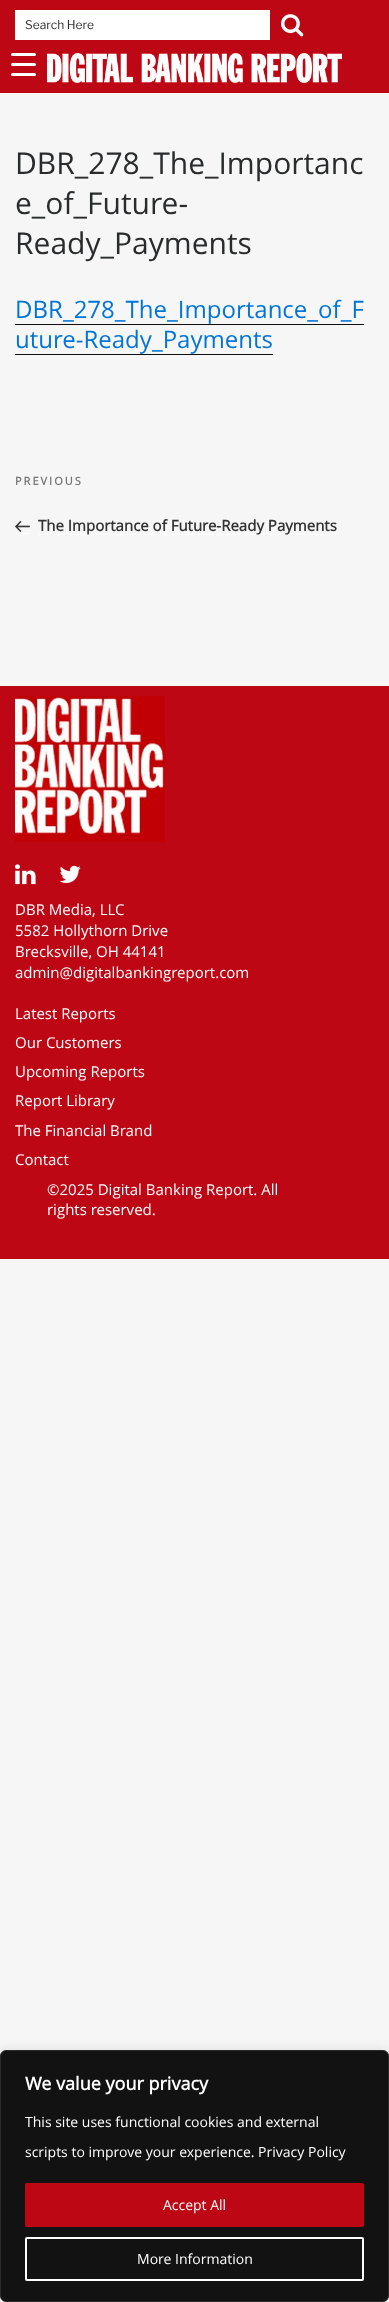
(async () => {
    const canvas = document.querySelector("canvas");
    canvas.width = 389;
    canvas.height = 2302;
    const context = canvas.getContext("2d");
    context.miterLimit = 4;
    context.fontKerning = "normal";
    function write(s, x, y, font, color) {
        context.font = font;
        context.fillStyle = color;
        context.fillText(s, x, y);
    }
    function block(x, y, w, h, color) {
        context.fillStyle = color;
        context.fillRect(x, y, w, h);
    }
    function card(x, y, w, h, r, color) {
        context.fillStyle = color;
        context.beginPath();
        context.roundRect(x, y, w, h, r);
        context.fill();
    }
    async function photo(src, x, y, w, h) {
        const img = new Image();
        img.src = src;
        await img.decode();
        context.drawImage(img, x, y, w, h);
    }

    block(0, 0, 389, 2302, "rgb(246, 246, 246)");
    block(0, 0, 389, 93, "rgb(190, 7, 20)");
    block(15, 10, 255, 30, "rgb(255, 255, 255)");
    write("Search Here", 25, 29, "100 12px Libre Franklin", "rgb(51, 51, 51)");
    await photo("media/1.png", 281, 14, 23, 23);
    await photo("media/2.png", 47, 53, 295, 30);
    write("DBR_278_The_Importanc", 15, 174, "30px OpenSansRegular", "rgb(41, 43, 44)");
    write("e_of_Future-", 15, 214, "30px OpenSansRegular", "rgb(41, 43, 44)");
    write("Ready_Payments", 15, 254, "30px OpenSansRegular", "rgb(41, 43, 44)");
    write("DBR_278_The_Importance_of_F", 15, 318, "24px OpenSansRegular", "rgb(2, 117, 216)");
    block(15, 324, 349, 1, "rgb(15, 15, 15)");
    write("uture-Ready_Payments", 15, 348, "24px OpenSansRegular", "rgb(2, 117, 216)");
    block(15, 354, 258, 1, "rgb(15, 15, 15)");
    block(14, 465, 1, 1, "rgb(255, 255, 255)");
    block(15, 533, 15, 1, "rgb(255, 255, 255)");
    block(38, 534, 298, 1, "rgb(255, 255, 255)");
    context.letterSpacing = "2px";
    write("PREVIOUS", 15, 485, "bold 11px OpenSansRegular", "rgb(118, 118, 118)");
    await photo("media/3.png", 15, 521, 15, 11);
    context.letterSpacing = "0px";
    write("The Importance of Future-Ready Payments", 38, 531, "bold 15px OpenSansRegular", "rgb(51, 51, 51)");
    block(0, 686, 389, 573, "rgb(190, 7, 20)");
    await photo("media/4.png", 15, 696, 150, 146);
    await photo("media/5.png", 15, 864, 21, 21);
    await photo("media/6.png", 59, 865, 22, 18);
    write("DBR Media, LLC", 15, 915, "15px OpenSansRegular", "rgb(255, 255, 255)");
    write("5582 Hollythorn Drive", 15, 936, "15px OpenSansRegular", "rgb(255, 255, 255)");
    write("Brecksville, OH 44141", 15, 957, "15px OpenSansRegular", "rgb(255, 255, 255)");
    write("admin@digitalbankingreport.com", 15, 978, "15px OpenSansRegular", "rgb(255, 255, 255)");
    write("Latest Reports", 15, 1019, "15px OpenSansRegular", "rgb(255, 255, 255)");
    write("Our Customers", 15, 1048, "15px OpenSansRegular", "rgb(255, 255, 255)");
    write("Upcoming Reports", 15, 1077, "15px OpenSansRegular", "rgb(255, 255, 255)");
    write("Report Library", 15, 1106, "15px OpenSansRegular", "rgb(255, 255, 255)");
    write("The Financial Brand", 15, 1136, "15px OpenSansRegular", "rgb(255, 255, 255)");
    write("Contact", 15, 1165, "15px OpenSansRegular", "rgb(255, 255, 255)");
    write("©2025 Digital Banking Report. All", 47, 1195, "15px OpenSansRegular", "rgb(255, 255, 255)");
    write("rights reserved.", 47, 1215, "15px OpenSansRegular", "rgb(255, 255, 255)");
    card(11, 63, 25, 3, 1.5, "rgb(255, 255, 255)");
    card(11, 53, 25, 3, 1.5, "rgb(255, 255, 255)");
    card(11, 73, 25, 3, 1.5, "rgb(255, 255, 255)");
    context.fillStyle = "rgba(172, 171, 171, 0.3)";
    context.filter = "blur(5px)";
    context.beginPath();
    context.roundRect(0, 2049, 389, 252, 6);
    context.fill();
    context.filter = "none";
    context.fillStyle = "rgb(18, 18, 18)";
    context.beginPath();
    context.roundRect(0.5, 2050.5, 388, 251, 5.5);
    context.fill();
    context.strokeStyle = "rgb(42, 42, 42)";
    context.stroke();
    write("We value your privacy", 25, 2090, "bold 18px OpenSansRegular", "rgb(255, 255, 255)");
    write("This site uses functional cookies and external", 25, 2127, "14px OpenSansRegular", "rgb(255, 255, 255)");
    write("scripts to improve your experience. Privacy Policy", 25, 2157, "14px OpenSansRegular", "rgb(255, 255, 255)");
    context.fillStyle = "rgb(190, 7, 20)";
    context.beginPath();
    context.roundRect(26, 2184, 337, 42, 1);
    context.fill();
    context.strokeStyle = "rgb(190, 7, 20)";
    context.lineWidth = 2;
    context.stroke();
    write("Accept All", 163, 2210, "14px OpenSansRegular", "rgb(255, 255, 255)");
    context.beginPath();
    context.roundRect(26, 2238, 337, 42, 1);
    context.strokeStyle = "rgb(255, 255, 255)";
    context.stroke();
    write("More Information", 137, 2264, "14px OpenSansRegular", "rgb(255, 255, 255)");
})();
